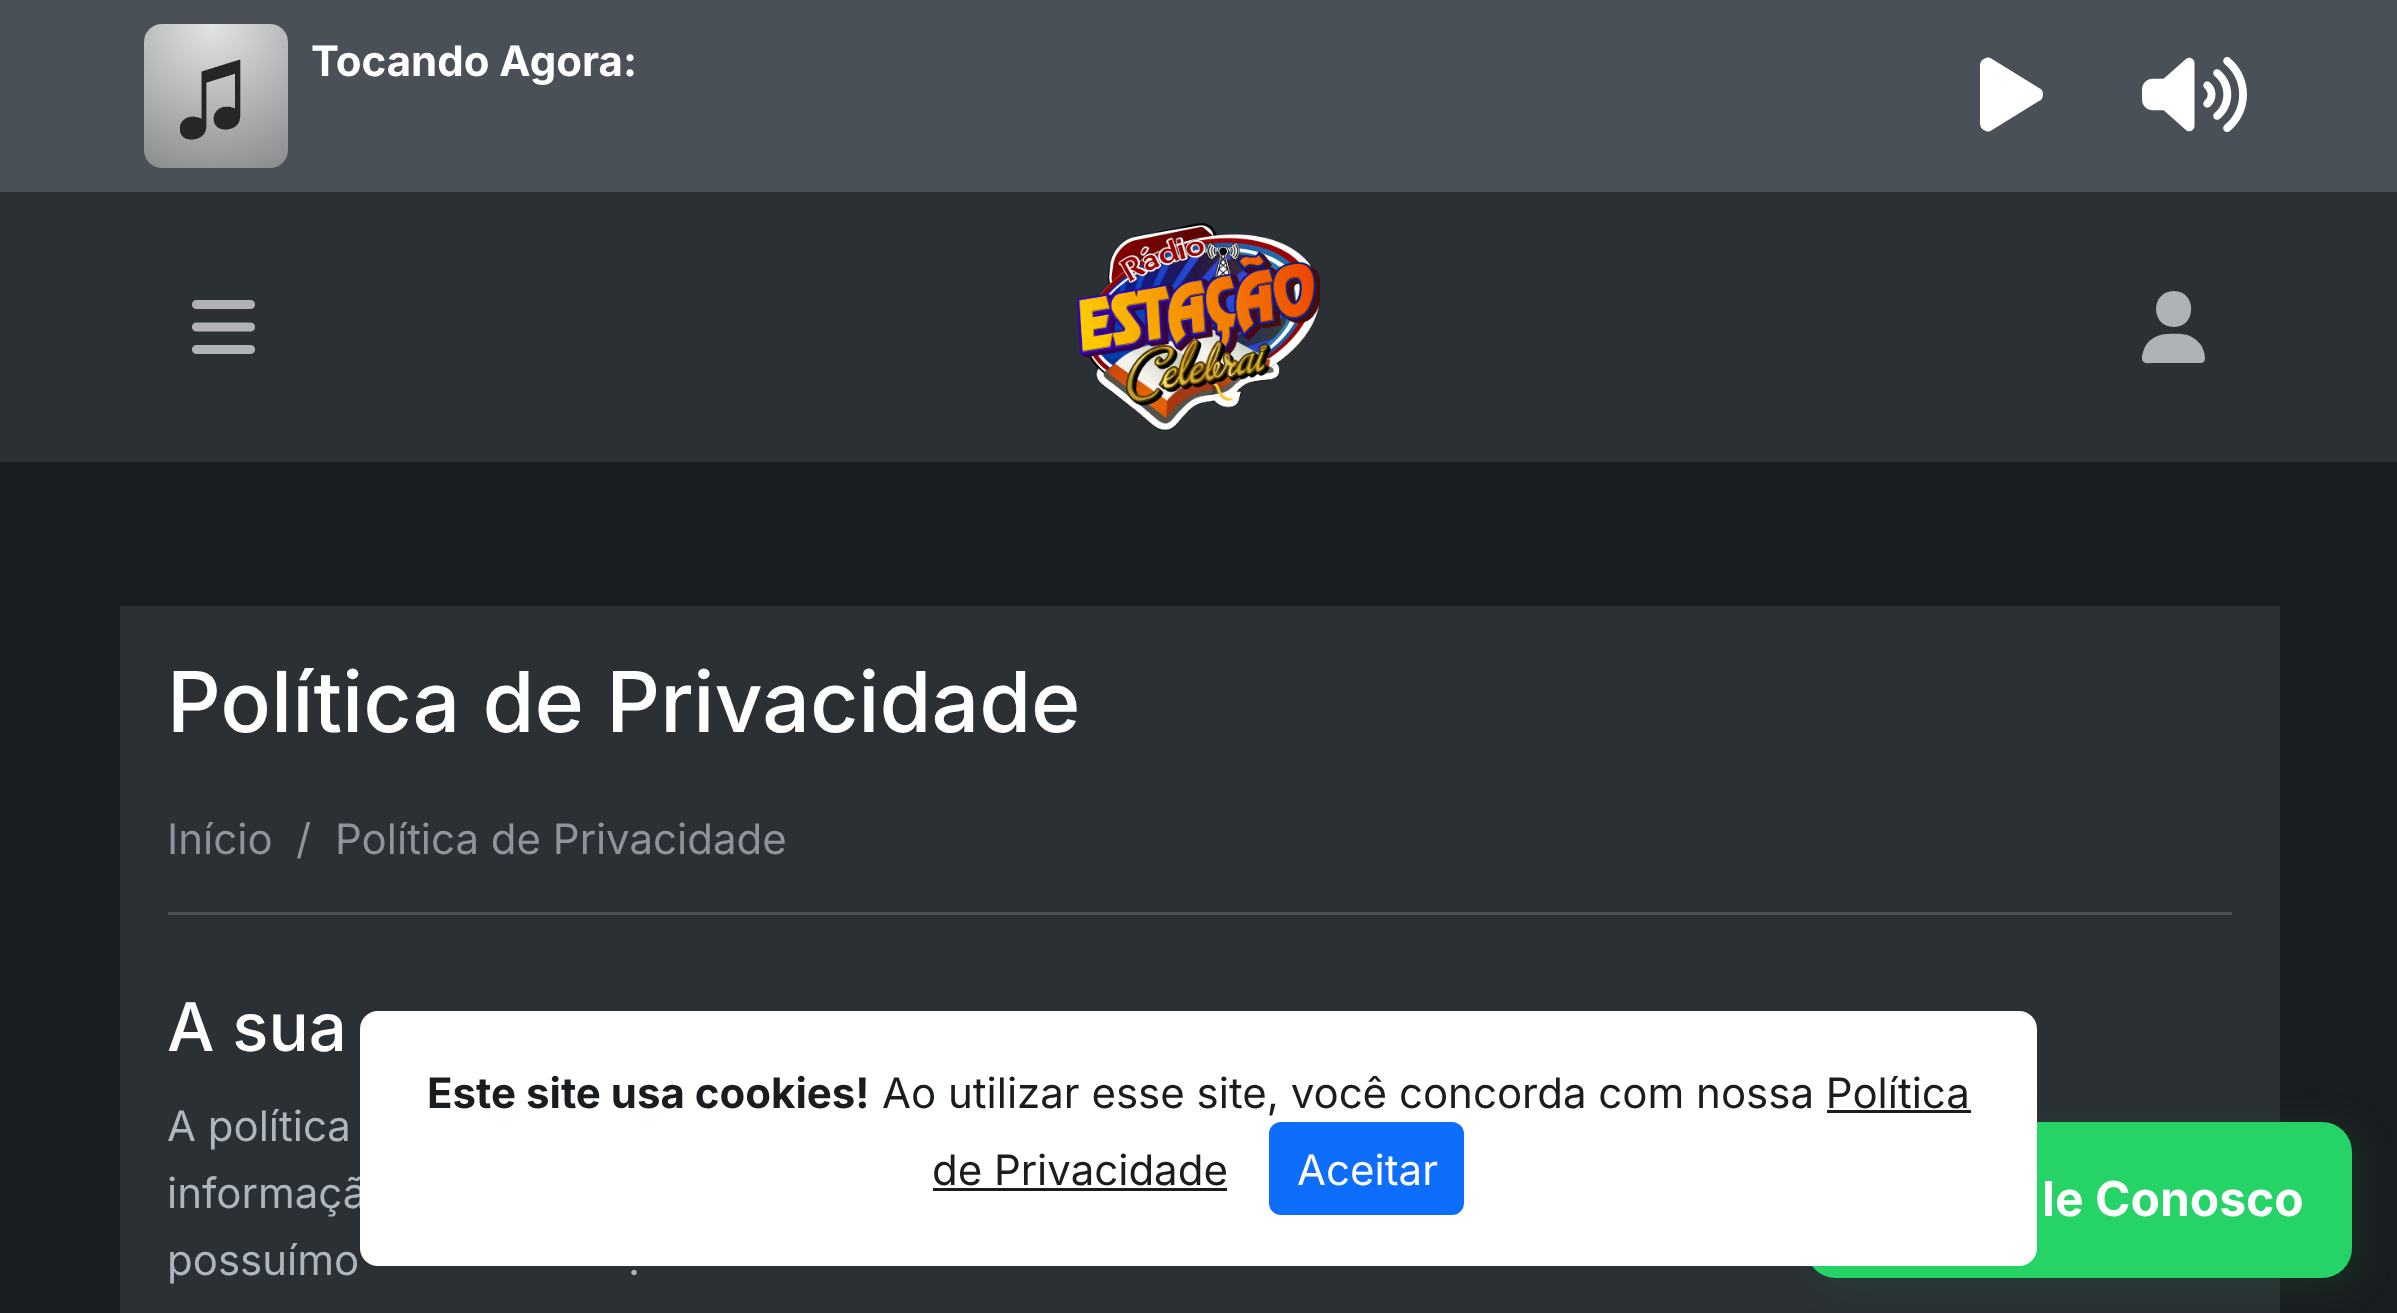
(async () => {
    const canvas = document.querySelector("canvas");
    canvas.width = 2397;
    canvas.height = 1313;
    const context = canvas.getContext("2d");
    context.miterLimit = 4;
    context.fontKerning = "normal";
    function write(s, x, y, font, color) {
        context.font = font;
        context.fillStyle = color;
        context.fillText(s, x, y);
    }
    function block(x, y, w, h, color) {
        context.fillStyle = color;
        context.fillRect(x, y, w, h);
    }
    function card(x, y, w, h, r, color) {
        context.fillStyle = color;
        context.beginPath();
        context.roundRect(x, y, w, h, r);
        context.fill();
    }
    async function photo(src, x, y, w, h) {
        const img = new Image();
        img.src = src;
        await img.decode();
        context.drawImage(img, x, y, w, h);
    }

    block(0, 0, 2397, 1313, "rgb(26, 29, 32)");
    block(0, 0, 2397, 192, "rgb(73, 80, 87)");
    await photo("media/1.png", 144, 24, 144, 144);
    write("Tocando Agora:", 311, 76, "bold 42px Inter", "rgb(255, 255, 255)");
    context.beginPath();
    context.moveTo(1992, 59);
    context.bezierCurveTo(1989, 57, 1987, 57, 1984, 59);
    context.bezierCurveTo(1981, 60, 1980, 63, 1980, 66);
    context.lineTo(1980, 123);
    context.bezierCurveTo(1980, 126, 1981, 129, 1984, 130);
    context.bezierCurveTo(1987, 132, 1989, 132, 1992, 130);
    context.lineTo(2039, 101);
    context.bezierCurveTo(2042, 100, 2043, 97, 2043, 94);
    context.bezierCurveTo(2043, 92, 2042, 89, 2039, 88);
    context.closePath();
    context.fill();
    await photo("media/2.png", 2142, 56, 105, 77);
    block(0, 192, 2397, 270, "rgb(43, 48, 53)");
    await photo("media/3.png", 192, 300, 63, 54);
    await photo("media/4.png", 1077, 223, 243, 208);
    context.fillStyle = "rgb(176, 179, 181)";
    context.beginPath();
    context.moveTo(2174, 327);
    context.bezierCurveTo(2197, 327, 2197, 291, 2174, 291);
    context.bezierCurveTo(2150, 291, 2150, 327, 2174, 327);
    context.closePath();
    context.moveTo(2167, 334);
    context.bezierCurveTo(2159, 334, 2151, 338, 2146, 345);
    context.bezierCurveTo(2144, 348, 2143, 352, 2142, 356);
    context.bezierCurveTo(2141, 365, 2148, 363, 2155, 363);
    context.lineTo(2201, 363);
    context.bezierCurveTo(2209, 363, 2203, 348, 2201, 345);
    context.bezierCurveTo(2198, 341, 2194, 338, 2190, 336);
    context.bezierCurveTo(2183, 333, 2174, 334, 2167, 334);
    context.closePath();
    context.fill();
    block(120, 606, 2160, 707, "rgb(43, 48, 53)");
    write("Política de Privacidade", 167, 732, "500 84px Inter", "rgb(255, 255, 255)");
    block(168, 912, 2064, 3, "rgb(73, 80, 87)");
    write("Início", 167, 854, "42px Inter", "rgb(141, 148, 155)");
    write("/", 296, 854, "42px Inter", "rgb(141, 148, 155)");
    write("Política de Privacidade", 335, 854, "42px Inter", "rgb(141, 148, 155)");
    write("A sua", 167, 1051, "500 67px Inter", "rgb(255, 255, 255)");
    write("A política", 167, 1141, "42px Inter", "rgb(173, 181, 189)");
    write("informaçã", 167, 1208, "42px Inter", "rgb(173, 181, 189)");
    write("possuímo", 167, 1275, "42px Inter", "rgb(173, 181, 189)");
    write(".", 628, 1275, "42px Inter", "rgb(173, 181, 189)");
    context.fillStyle = "rgba(22, 124, 60, 0.2)";
    context.filter = "blur(18px)";
    context.beginPath();
    context.roundRect(1812, 1128, 546, 156, 30);
    context.fill();
    context.filter = "none";
    card(1806, 1122, 546, 156, 30, "rgb(37, 211, 102)");
    card(360, 1011, 1677, 255, 18, "rgb(255, 255, 255)");
    write("Este site usa cookies!", 427, 1108, "bold 42px Inter", "rgb(26, 29, 32)");
    write("Ao utilizar esse site, você concorda com nossa Política", 882, 1108, "42px Inter", "rgb(26, 29, 32)");
    write("de Privacidade", 932, 1185, "42px Inter", "rgb(26, 29, 32)");
    block(1827, 1110, 144, 3, "rgb(26, 29, 32)");
    block(933, 1188, 294, 3, "rgb(26, 29, 32)");
    context.fillStyle = "rgb(13, 110, 253)";
    context.beginPath();
    context.roundRect(1270.5, 1123.5, 192, 90, 10.5);
    context.fill();
    context.strokeStyle = "rgb(13, 110, 253)";
    context.lineWidth = 3;
    context.stroke();
    write("Aceitar", 1297, 1185, "42px Inter", "rgb(255, 255, 255)");
    write("le Conosco", 2042, 1216, "bold 48px Inter", "rgb(255, 255, 255)");
})();
